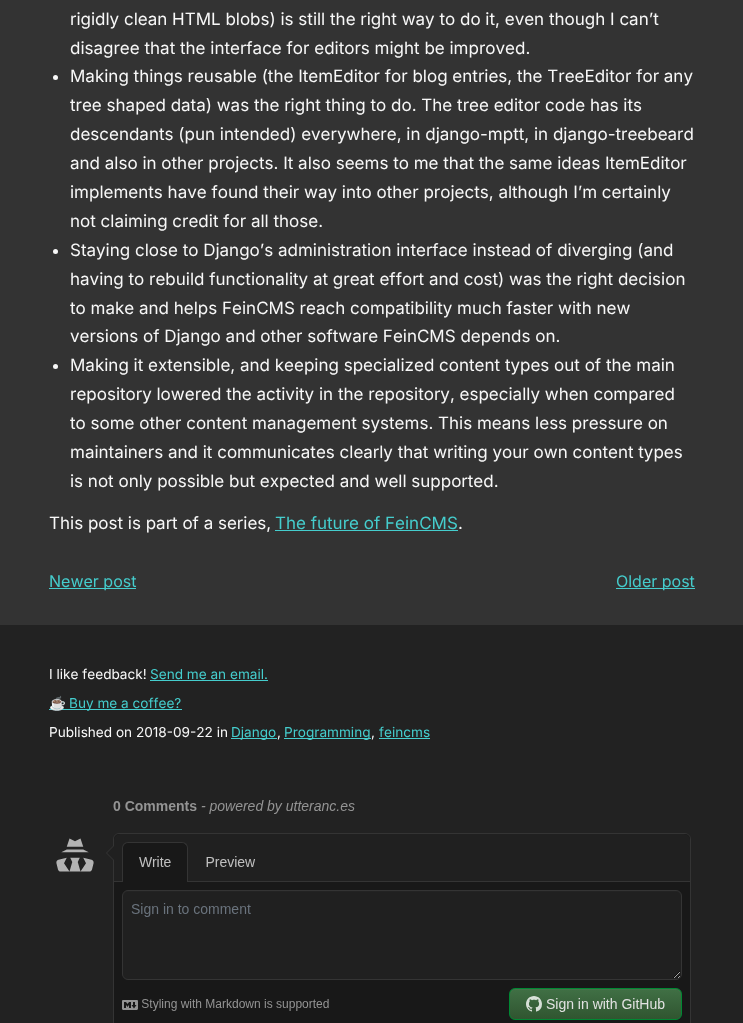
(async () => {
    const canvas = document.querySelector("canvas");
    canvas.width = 743;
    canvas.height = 1023;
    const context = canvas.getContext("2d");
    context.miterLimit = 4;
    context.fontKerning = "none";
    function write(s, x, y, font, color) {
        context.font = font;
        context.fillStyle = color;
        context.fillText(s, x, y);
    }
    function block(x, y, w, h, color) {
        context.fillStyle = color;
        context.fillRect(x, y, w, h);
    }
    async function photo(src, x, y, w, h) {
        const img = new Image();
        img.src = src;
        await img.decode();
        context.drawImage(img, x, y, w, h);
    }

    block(0, 0, 743, 1023, "rgb(34, 34, 34)");
    block(0, 0, 743, 625, "rgb(51, 51, 51)");
    write("rigidly clean HTML blobs) is still the right way to do it, even though I can’t", 70, 25, "17px Inter", "rgb(248, 248, 248)");
    write("disagree that the interface for editors might be improved.", 70, 54, "17px Inter", "rgb(248, 248, 248)");
    context.beginPath();
    context.arc(55.5, 77.5, 2.5, 0, Math.PI * 2);
    context.fill();
    write("Making things reusable (the ItemEditor for blog entries, the TreeEditor for any", 70, 82, "17px Inter", "rgb(248, 248, 248)");
    write("tree shaped data) was the right thing to do. The tree editor code has its", 70, 111, "17px Inter", "rgb(248, 248, 248)");
    write("descendants (pun intended) everywhere, in django-mptt, in django-treebeard", 70, 140, "17px Inter", "rgb(248, 248, 248)");
    write("and also in other projects. It also seems to me that the same ideas ItemEditor", 70, 169, "17px Inter", "rgb(248, 248, 248)");
    write("implements have found their way into other projects, although I’m certainly", 70, 198, "17px Inter", "rgb(248, 248, 248)");
    write("not claiming credit for all those.", 70, 227, "17px Inter", "rgb(248, 248, 248)");
    context.beginPath();
    context.arc(55.5, 251.5, 2.5, 0, Math.PI * 2);
    context.fill();
    write("Staying close to Django’s administration interface instead of diverging (and", 70, 256, "17px Inter", "rgb(248, 248, 248)");
    write("having to rebuild functionality at great effort and cost) was the right decision", 70, 285, "17px Inter", "rgb(248, 248, 248)");
    write("to make and helps FeinCMS reach compatibility much faster with new", 70, 314, "17px Inter", "rgb(248, 248, 248)");
    write("versions of Django and other software FeinCMS depends on.", 70, 342, "17px Inter", "rgb(248, 248, 248)");
    context.beginPath();
    context.arc(55.5, 366.5, 2.5, 0, Math.PI * 2);
    context.fill();
    write("Making it extensible, and keeping specialized content types out of the main", 70, 371, "17px Inter", "rgb(248, 248, 248)");
    write("repository lowered the activity in the repository, especially when compared", 70, 400, "17px Inter", "rgb(248, 248, 248)");
    write("to some other content management systems. This means less pressure on", 70, 429, "17px Inter", "rgb(248, 248, 248)");
    write("maintainers and it communicates clearly that writing your own content types", 70, 458, "17px Inter", "rgb(248, 248, 248)");
    write("is not only possible but expected and well supported.", 70, 487, "17px Inter", "rgb(248, 248, 248)");
    write("This post is part of a series,", 49, 529, "17px Inter", "rgb(248, 248, 248)");
    write("The future of FeinCMS", 275, 529, "17px Inter", "rgb(69, 205, 205)");
    block(275, 530, 183, 1, "rgb(69, 205, 205)");
    write(".", 458, 529, "17px Inter", "rgb(248, 248, 248)");
    block(49, 588, 87, 1, "rgb(69, 205, 205)");
    write("Newer post", 49, 587, "16px Inter", "rgb(69, 205, 205)");
    block(616, 588, 79, 1, "rgb(69, 205, 205)");
    write("Older post", 616, 587, "16px Inter", "rgb(69, 205, 205)");
    write("I like feedback!", 49, 679, "13.6px Inter", "rgb(248, 248, 248)");
    write("Send me an email.", 150, 679, "13.6px Inter", "rgb(69, 205, 205)");
    block(150, 680, 118, 1, "rgb(69, 205, 205)");
    block(49, 709, 133, 1, "rgb(69, 205, 205)");
    write("☕", 49, 708, "13.6px Noto Color Emoji", "rgb(69, 205, 205)");
    write("Buy me a coffee?", 69, 708, "13.6px Inter", "rgb(69, 205, 205)");
    write("Published on 2018-09-22 in", 49, 737, "13.6px Inter", "rgb(248, 248, 248)");
    block(231, 738, 46, 1, "rgb(69, 205, 205)");
    write("Django", 231, 737, "13.6px Inter", "rgb(69, 205, 205)");
    write(",", 277, 737, "13.6px Inter", "rgb(248, 248, 248)");
    block(284, 738, 87, 1, "rgb(69, 205, 205)");
    write("Programming", 284, 737, "13.6px Inter", "rgb(69, 205, 205)");
    write(",", 371, 737, "13.6px Inter", "rgb(248, 248, 248)");
    block(379, 738, 51, 1, "rgb(69, 205, 205)");
    write("feincms", 379, 737, "13.6px Inter", "rgb(69, 205, 205)");
    await photo("media/1.png", 56, 800, 635, 223);
})();
